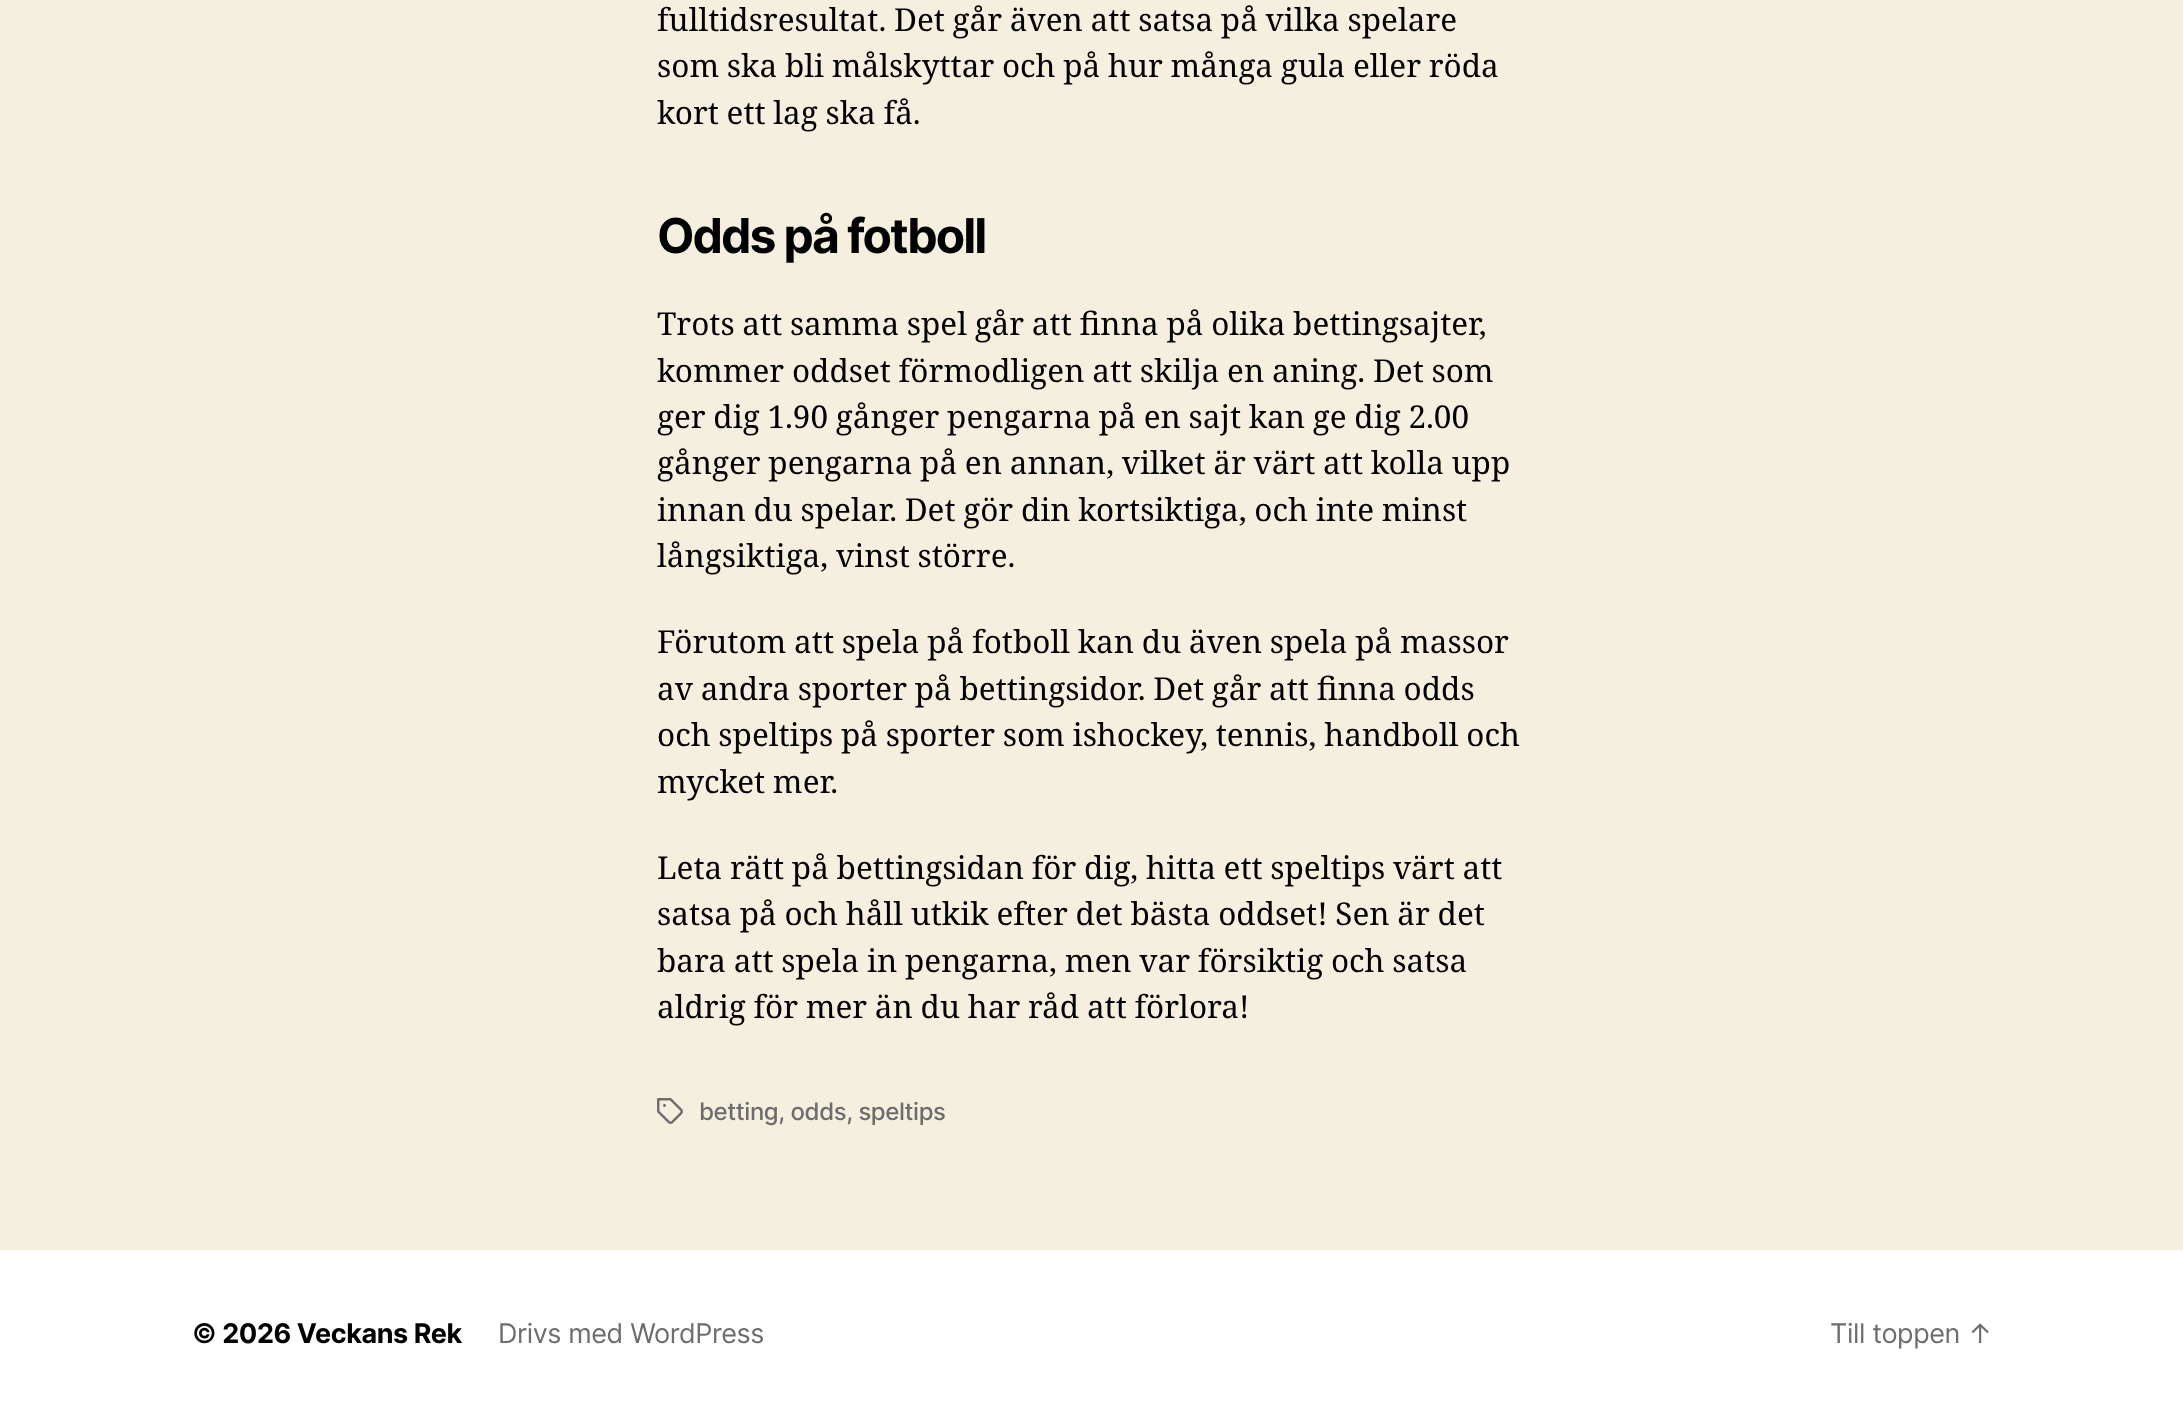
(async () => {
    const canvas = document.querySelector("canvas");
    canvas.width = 2183;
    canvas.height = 1418;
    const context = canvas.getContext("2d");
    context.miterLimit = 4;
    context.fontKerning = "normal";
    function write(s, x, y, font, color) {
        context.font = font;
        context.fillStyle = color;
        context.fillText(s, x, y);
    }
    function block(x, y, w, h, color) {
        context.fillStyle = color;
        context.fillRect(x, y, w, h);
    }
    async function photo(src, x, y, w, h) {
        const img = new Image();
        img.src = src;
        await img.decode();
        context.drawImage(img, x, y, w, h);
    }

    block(0, 0, 2183, 1418, "rgb(245, 239, 224)");
    context.wordSpacing = "-0.5px";
    write("fulltidsresultat. Det går även att satsa på vilka spelare", 657, 31, "31.5px Noto Serif", "rgb(0, 0, 0)");
    write("som ska bli målskyttar och på hur många gula eller röda", 657, 77, "31.5px Noto Serif", "rgb(0, 0, 0)");
    write("kort ett lag ska få.", 657, 124, "31.5px Noto Serif", "rgb(0, 0, 0)");
    context.letterSpacing = "-2px";
    context.wordSpacing = "0px";
    write("Odds på fotboll", 657, 253, "bold 48px Inter", "rgb(0, 0, 0)");
    context.letterSpacing = "0px";
    context.wordSpacing = "-0.5px";
    write("Trots att samma spel går att finna på olika bettingsajter,", 657, 335, "31.5px Noto Serif", "rgb(0, 0, 0)");
    write("kommer oddset förmodligen att skilja en aning. Det som", 657, 382, "31.5px Noto Serif", "rgb(0, 0, 0)");
    write("ger dig 1.90 gånger pengarna på en sajt kan ge dig 2.00", 657, 428, "31.5px Noto Serif", "rgb(0, 0, 0)");
    write("gånger pengarna på en annan, vilket är värt att kolla upp", 657, 474, "31.5px Noto Serif", "rgb(0, 0, 0)");
    write("innan du spelar. Det gör din kortsiktiga, och inte minst", 657, 521, "31.5px Noto Serif", "rgb(0, 0, 0)");
    write("långsiktiga, vinst större.", 657, 567, "31.5px Noto Serif", "rgb(0, 0, 0)");
    write("Förutom att spela på fotboll kan du även spela på massor", 657, 653, "31.5px Noto Serif", "rgb(0, 0, 0)");
    write("av andra sporter på bettingsidor. Det går att finna odds", 657, 700, "31.5px Noto Serif", "rgb(0, 0, 0)");
    write("och speltips på sporter som ishockey, tennis, handboll och", 657, 746, "31.5px Noto Serif", "rgb(0, 0, 0)");
    write("mycket mer.", 657, 793, "31.5px Noto Serif", "rgb(0, 0, 0)");
    write("Leta rätt på bettingsidan för dig, hitta ett speltips värt att", 657, 879, "31.5px Noto Serif", "rgb(0, 0, 0)");
    write("satsa på och håll utkik efter det bästa oddset! Sen är det", 657, 925, "31.5px Noto Serif", "rgb(0, 0, 0)");
    write("bara att spela in pengarna, men var försiktig och satsa", 657, 972, "31.5px Noto Serif", "rgb(0, 0, 0)");
    write("aldrig för mer än du har råd att förlora!", 657, 1018, "31.5px Noto Serif", "rgb(0, 0, 0)");
    await photo("media/1.png", 657, 1098, 26, 26);
    context.letterSpacing = "-0.4px";
    context.wordSpacing = "0px";
    write("betting, odds, speltips", 699, 1120, "500 24px Inter", "rgb(109, 109, 109)");
    block(0, 1250, 2183, 168, "rgb(255, 255, 255)");
    write("© 2026 Veckans Rek", 192, 1343, "bold 27px Inter", "rgb(0, 0, 0)");
    write("Drivs med WordPress", 498, 1343, "27px Inter", "rgb(109, 109, 109)");
    write("Till toppen ↑", 1830, 1343, "27px Inter", "rgb(109, 109, 109)");
})();
